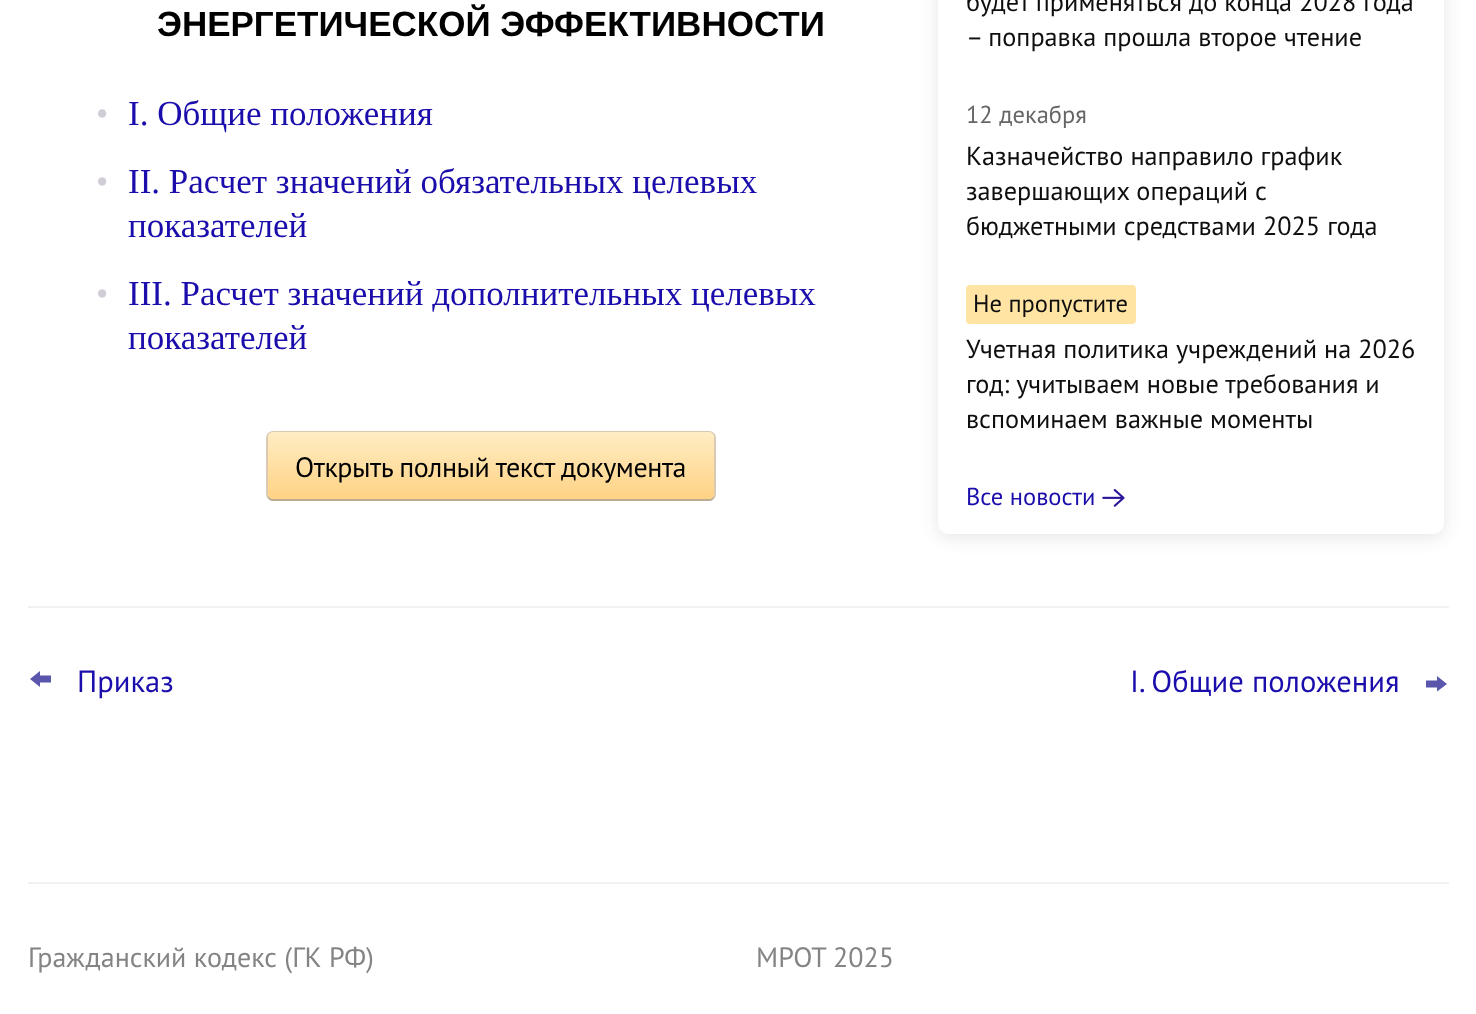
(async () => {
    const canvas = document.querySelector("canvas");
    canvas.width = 1476;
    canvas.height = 1014;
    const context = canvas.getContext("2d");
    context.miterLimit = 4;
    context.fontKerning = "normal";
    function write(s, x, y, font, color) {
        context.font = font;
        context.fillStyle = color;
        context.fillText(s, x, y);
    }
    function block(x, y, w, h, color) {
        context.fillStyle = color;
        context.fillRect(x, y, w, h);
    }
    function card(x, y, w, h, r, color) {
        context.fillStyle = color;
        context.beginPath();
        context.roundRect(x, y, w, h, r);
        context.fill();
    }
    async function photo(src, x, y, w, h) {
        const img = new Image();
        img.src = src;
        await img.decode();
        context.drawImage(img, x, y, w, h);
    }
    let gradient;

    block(0, 0, 1476, 1014, "rgb(255, 255, 255)");
    write("ЭНЕРГЕТИЧЕСКОЙ ЭФФЕКТИВНОСТИ", 157, 36, "bold 35px Liberation Sans", "rgb(0, 0, 0)");
    write("•", 96, 125, "35px Liberation Serif", "rgb(209, 205, 215)");
    write("I. Общие положения", 128, 125, "35px Liberation Serif", "rgb(26, 13, 171)");
    write("•", 96, 193, "35px Liberation Serif", "rgb(209, 205, 215)");
    write("II. Расчет значений обязательных целевых", 128, 193, "35px Liberation Serif", "rgb(26, 13, 171)");
    write("показателей", 128, 237, "35px Liberation Serif", "rgb(26, 13, 171)");
    write("•", 96, 305, "35px Liberation Serif", "rgb(209, 205, 215)");
    write("III. Расчет значений дополнительных целевых", 128, 305, "35px Liberation Serif", "rgb(26, 13, 171)");
    write("показателей", 128, 349, "35px Liberation Serif", "rgb(26, 13, 171)");
    context.beginPath();
    context.roundRect(267, 432, 448, 68, 6);
    context.strokeStyle = "rgb(218, 202, 179)";
    context.lineWidth = 2;
    context.stroke();
    context.fillStyle = "rgba(73, 49, 12, 0.2)";
    context.beginPath();
    context.moveTo(268, 495);
    context.lineTo(268, 496);
    context.bezierCurveTo(268, 499, 270, 501, 273, 501);
    context.lineTo(709, 501);
    context.bezierCurveTo(712, 501, 714, 499, 714, 496);
    context.lineTo(714, 494);
    context.bezierCurveTo(714, 496, 712, 499, 709, 499);
    context.lineTo(273, 499);
    context.bezierCurveTo(271, 499, 269, 497, 268, 495);
    context.closePath();
    context.fill();
    gradient = context.createLinearGradient(491, 432, 491, 499);
    gradient.addColorStop(0, "rgb(255, 237, 196)");
    gradient.addColorStop(0.97, "rgb(255, 211, 134)");
    context.fillStyle = gradient;
    context.beginPath();
    context.roundRect(268, 432, 446, 67, 5);
    context.fill();
    context.letterSpacing = "-0.45px";
    write("Открыть полный текст документа", 295, 477, "28px PT Sans", "rgb(0, 0, 0)");
    context.fillStyle = "rgba(40, 39, 42, 0.12)";
    context.filter = "blur(9px)";
    context.beginPath();
    context.roundRect(938, -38, 506, 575, 11);
    context.fill();
    context.filter = "none";
    card(938, -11, 506, 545, 11, "rgb(255, 255, 255)");
    context.letterSpacing = "0px";
    write("будет применяться до конца 2028 года", 966, 11, "26.25px PT Sans", "rgb(14, 14, 14)");
    write("– поправка прошла второе чтение", 966, 46, "26.25px PT Sans", "rgb(14, 14, 14)");
    write("12 декабря", 966, 123, "24.5px PT Sans", "rgb(102, 102, 102)");
    write("Казначейство направило график", 966, 165, "26.25px PT Sans", "rgb(14, 14, 14)");
    write("завершающих операций с", 966, 200, "26.25px PT Sans", "rgb(14, 14, 14)");
    write("бюджетными средствами 2025 года", 966, 235, "26.25px PT Sans", "rgb(14, 14, 14)");
    card(966, 285, 170, 39, 4, "rgb(255, 228, 163)");
    write("Не пропустите", 973, 312, "24.5px PT Sans", "rgb(14, 14, 14)");
    write("Учетная политика учреждений на 2026", 966, 358, "26.25px PT Sans", "rgb(14, 14, 14)");
    write("год: учитываем новые требования и", 966, 393, "26.25px PT Sans", "rgb(14, 14, 14)");
    write("вспоминаем важные моменты", 966, 428, "26.25px PT Sans", "rgb(14, 14, 14)");
    write("Все новости", 966, 505, "24.5px PT Sans", "rgb(26, 13, 171)");
    await photo("media/1.png", 1102, 489, 23, 18);
    block(28, 606, 1421, 2, "rgb(242, 242, 242)");
    context.fillStyle = "rgb(90, 86, 171)";
    context.beginPath();
    context.moveTo(51, 682.5);
    context.lineTo(40, 682.5);
    context.lineTo(40, 675.5);
    context.lineTo(51, 675.5);
    context.closePath();
    context.moveTo(40, 687);
    context.lineTo(40, 671);
    context.lineTo(30, 679);
    context.closePath();
    context.fill("evenodd");
    write("Приказ", 77, 692, "30.6px PT Sans", "rgb(26, 13, 171)");
    write("I. Общие положения", 1130, 692, "30.6px PT Sans", "rgb(26, 13, 171)");
    context.fillStyle = "rgb(90, 86, 171)";
    context.beginPath();
    context.moveTo(1426, 680.5);
    context.lineTo(1437, 680.5);
    context.lineTo(1437, 687.5);
    context.lineTo(1426, 687.5);
    context.closePath();
    context.moveTo(1437, 676);
    context.lineTo(1437, 691.5);
    context.lineTo(1447, 684);
    context.closePath();
    context.fill("evenodd");
    block(28, 882, 1421, 2, "rgb(241, 241, 241)");
    write("Гражданский кодекс (ГК РФ)", 28, 967, "28px PT Sans", "rgb(132, 132, 132)");
    write("МРОТ 2025", 756, 967, "28px PT Sans", "rgb(132, 132, 132)");
})();
